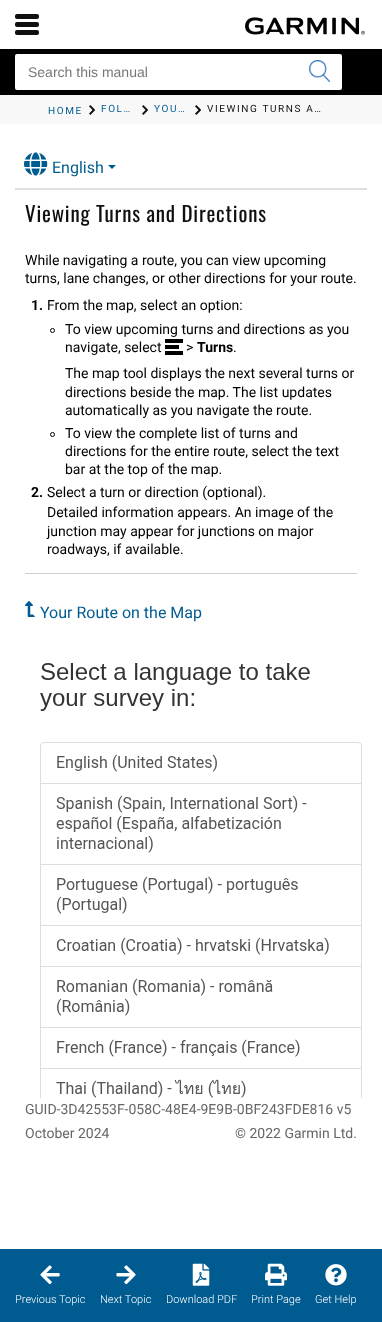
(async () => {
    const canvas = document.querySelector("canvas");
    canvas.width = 382;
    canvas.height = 1322;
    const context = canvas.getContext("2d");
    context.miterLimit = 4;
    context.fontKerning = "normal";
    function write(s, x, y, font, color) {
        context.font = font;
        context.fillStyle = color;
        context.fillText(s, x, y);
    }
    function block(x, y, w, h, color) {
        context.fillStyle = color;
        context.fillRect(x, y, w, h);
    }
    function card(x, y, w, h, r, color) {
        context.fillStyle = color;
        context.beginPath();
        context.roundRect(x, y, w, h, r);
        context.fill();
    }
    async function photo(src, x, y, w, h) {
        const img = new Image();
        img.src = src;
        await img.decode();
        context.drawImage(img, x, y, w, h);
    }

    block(0, 0, 382, 1322, "rgb(255, 255, 255)");
    card(15, 14, 24, 5, 2, "rgb(16, 16, 16)");
    card(15, 22, 24, 5, 2, "rgb(16, 16, 16)");
    card(15, 30, 24, 5, 2, "rgb(16, 16, 16)");
    await photo("media/1.png", 245, 17, 120, 18);
    block(0, 49, 382, 46, "rgb(0, 0, 0)");
    card(15, 54, 327, 36, 2, "rgb(255, 255, 255)");
    write("Search this manual", 28, 77, "14px Liberation Sans", "rgb(118, 118, 118)");
    await photo("media/2.png", 309, 60, 21, 22);
    block(0, 95, 382, 29, "rgb(248, 248, 248)");
    context.letterSpacing = "1.6px";
    write("HOME", 48, 114, "10px Roboto", "rgb(0, 92, 144)");
    await photo("media/3.png", 89, 105, 6, 10);
    write("FOL…", 101, 112, "10px Roboto", "rgb(0, 92, 144)");
    await photo("media/3.png", 142, 105, 6, 10);
    write("YOU…", 154, 112, "10px Roboto", "rgb(0, 92, 144)");
    await photo("media/3.png", 195, 105, 6, 10);
    write("VIEWING TURNS A…", 207, 112, "10px Roboto", "rgb(16, 16, 16)");
    block(15, 188, 352, 2, "rgb(224, 224, 224)");
    await photo("media/4.png", 24, 152, 24, 24);
    context.letterSpacing = "0px";
    write("English", 52, 173, "16px Roboto", "rgb(0, 92, 144)");
    context.beginPath();
    context.moveTo(108, 165);
    context.lineTo(116, 165);
    context.lineTo(112, 169);
    context.closePath();
    context.fill();
    context.letterSpacing = "0.8px";
    write("Viewing Turns and Directions", 25, 222, "21px Oswald", "rgb(16, 16, 16)");
    context.letterSpacing = "0px";
    write("While navigating a route, you can view upcoming", 25, 265, "14px Roboto", "rgb(0, 0, 0)");
    write("turns, lane changes, or other directions for your route.", 25, 283, "14px Roboto", "rgb(0, 0, 0)");
    write("1.", 31, 310, "bold 14px Roboto", "rgb(0, 0, 0)");
    write("From the map, select an option:", 47, 310, "14px Roboto", "rgb(0, 0, 0)");
    context.beginPath();
    context.arc(52.5, 330.5, 2, 0, Math.PI * 2);
    context.strokeStyle = "rgb(0, 0, 0)";
    context.stroke();
    write("To view upcoming turns and directions as you", 65, 334, "14px Roboto", "rgb(0, 0, 0)");
    write("navigate, select", 65, 352, "14px Roboto", "rgb(0, 0, 0)");
    block(165, 339, 18, 4, "rgb(0, 0, 0)");
    block(165, 345, 14, 4, "rgb(0, 0, 0)");
    block(165, 351, 18, 4, "rgb(0, 0, 0)");
    write(">", 186, 352, "14px Roboto", "rgb(0, 0, 0)");
    write("Turns", 197, 352, "bold 14px Roboto", "rgb(0, 0, 0)");
    write(".", 233, 352, "14px Roboto", "rgb(0, 0, 0)");
    write("The map tool displays the next several turns or", 65, 378, "14px Roboto", "rgb(0, 0, 0)");
    write("directions beside the map. The list updates", 65, 397, "14px Roboto", "rgb(0, 0, 0)");
    write("automatically as you navigate the route.", 65, 415, "14px Roboto", "rgb(0, 0, 0)");
    context.beginPath();
    context.arc(52.5, 434.5, 2, 0, Math.PI * 2);
    context.stroke();
    write("To view the complete list of turns and", 65, 438, "14px Roboto", "rgb(0, 0, 0)");
    write("directions for the entire route, select the text", 65, 456, "14px Roboto", "rgb(0, 0, 0)");
    write("bar at the top of the map.", 65, 474, "14px Roboto", "rgb(0, 0, 0)");
    write("2.", 31, 497, "bold 14px Roboto", "rgb(0, 0, 0)");
    write("Select a turn or direction (optional).", 47, 497, "14px Roboto", "rgb(0, 0, 0)");
    write("Detailed information appears. An image of the", 47, 517, "14px Roboto", "rgb(0, 0, 0)");
    write("junction may appear for junctions on major", 47, 536, "14px Roboto", "rgb(0, 0, 0)");
    write("roadways, if available.", 47, 554, "14px Roboto", "rgb(0, 0, 0)");
    block(25, 573, 332, 1, "rgb(207, 207, 207)");
    await photo("media/5.png", 25, 601, 10, 16);
    write("Your Route on the Map", 40, 618, "16px Roboto", "rgb(0, 92, 144)");
    await photo("media/6.png", 40, 663, 322, 435);
    write("GUID-3D42553F-058C-48E4-9E9B-0BF243FDE816 v5", 25, 1114, "14px Roboto", "rgb(102, 102, 102)");
    write("October 2024", 25, 1138, "14px Roboto", "rgb(102, 102, 102)");
    write("© 2022 Garmin Ltd.", 235, 1138, "14px Roboto", "rgb(102, 102, 102)");
    block(0, 1249, 382, 73, "rgb(0, 92, 144)");
    await photo("media/7.png", 40, 1265, 20, 20);
    write("Previous Topic", 15, 1303, "300 11px Roboto", "rgb(255, 255, 255)");
    await photo("media/8.png", 116, 1265, 20, 20);
    write("Next Topic", 100, 1303, "300 11px Roboto", "rgb(255, 255, 255)");
    await photo("media/9.png", 192, 1263, 18, 23);
    write("Download PDF", 166, 1303, "300 11px Roboto", "rgb(255, 255, 255)");
    await photo("media/10.png", 265, 1263, 22, 23);
    write("Print Page", 251, 1303, "300 11px Roboto", "rgb(255, 255, 255)");
    await photo("media/11.png", 325, 1264, 22, 22);
    write("Get Help", 315, 1303, "300 11px Roboto", "rgb(255, 255, 255)");
})();
